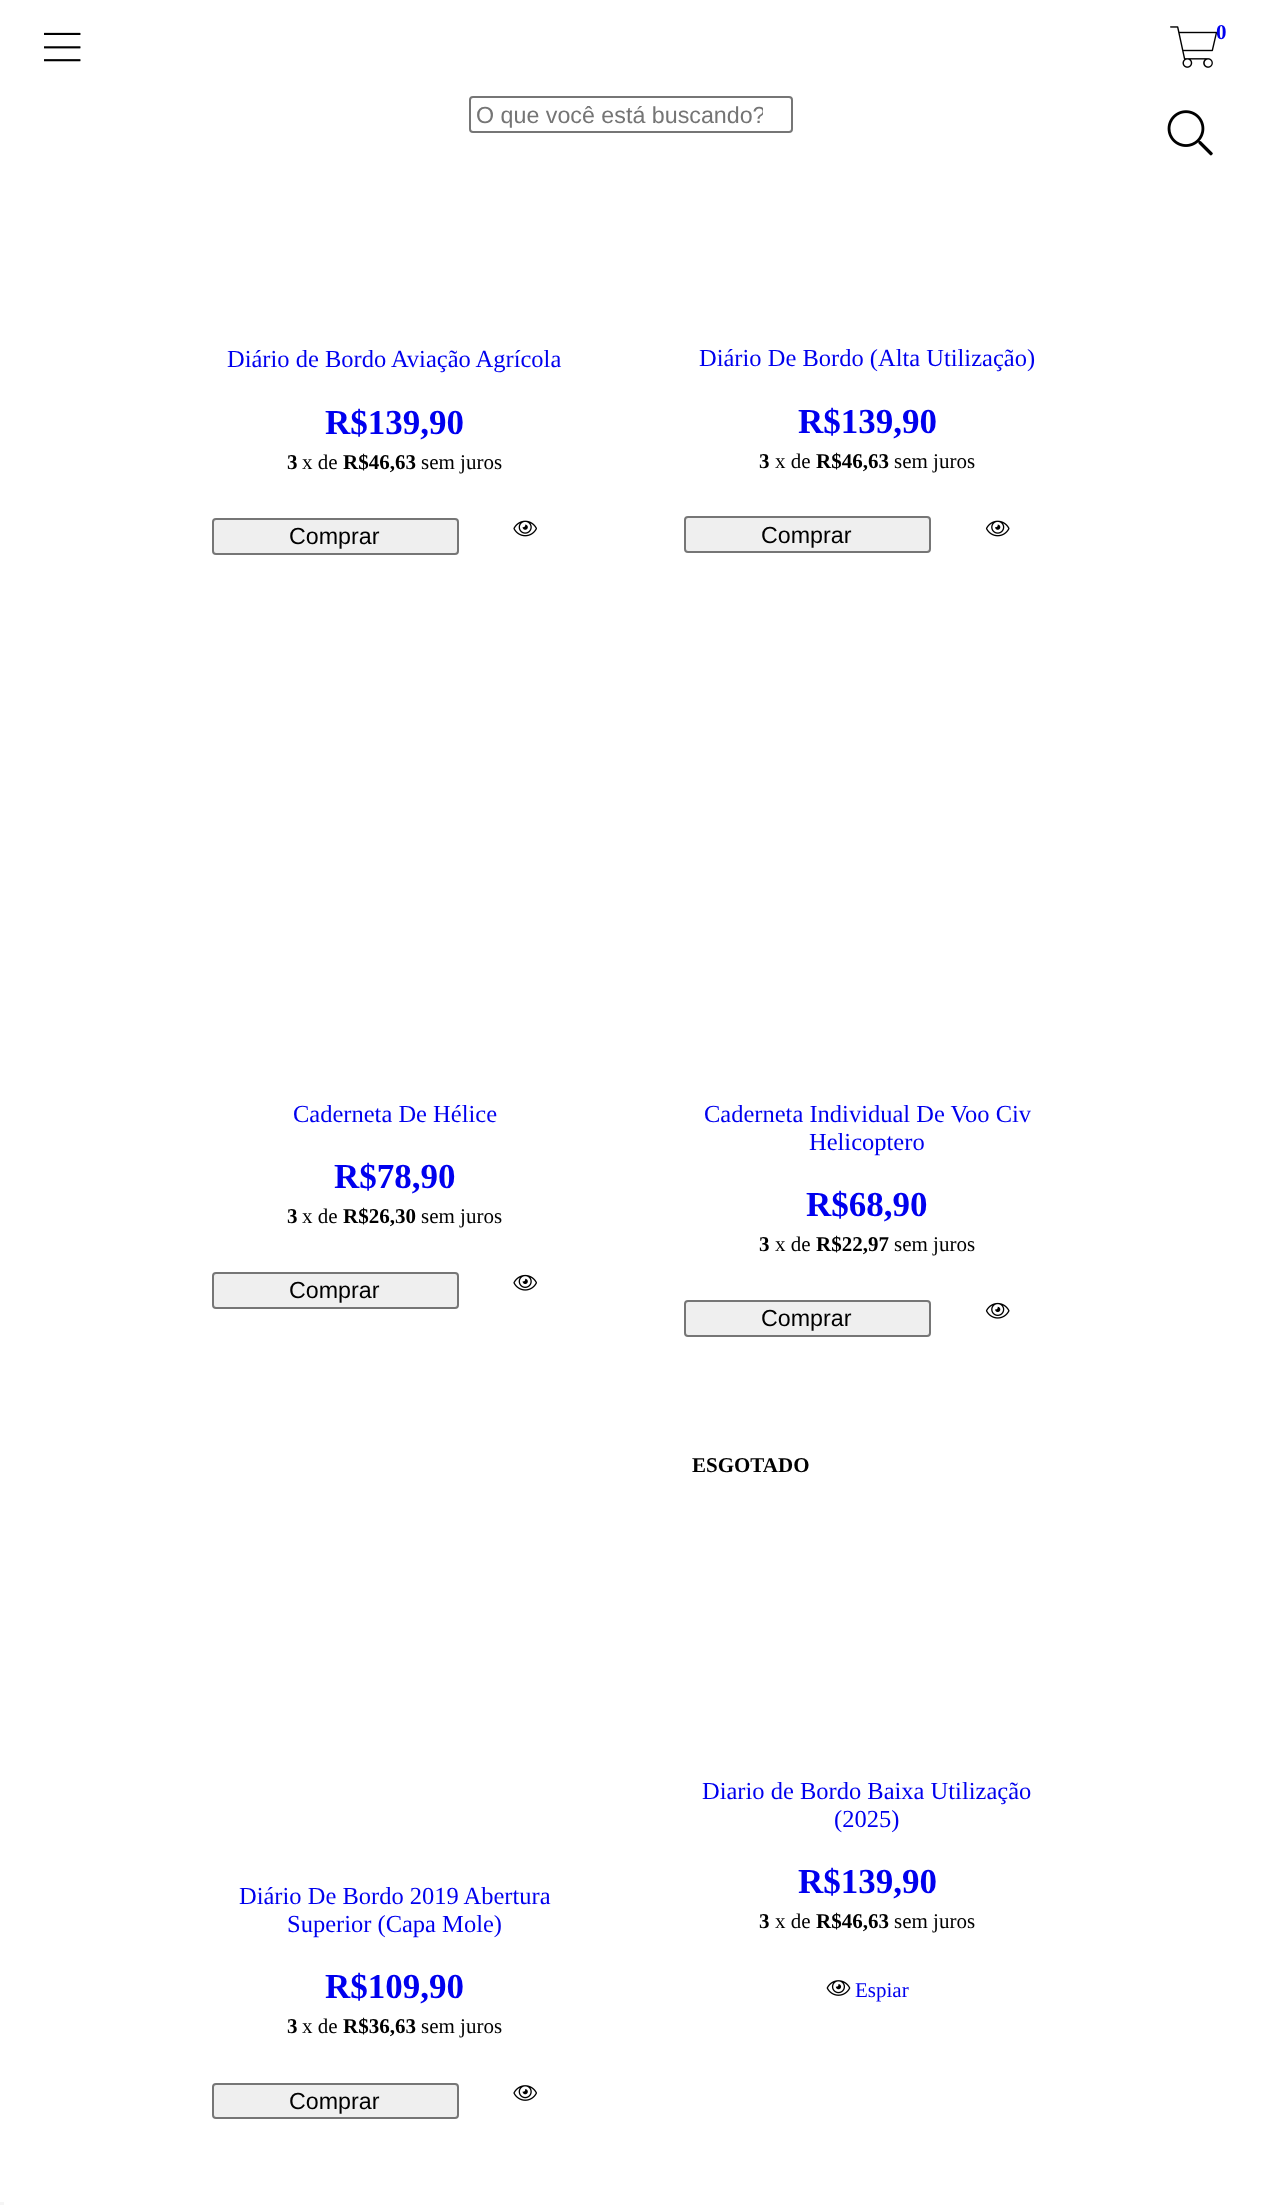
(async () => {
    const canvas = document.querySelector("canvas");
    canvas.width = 1261;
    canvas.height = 2205;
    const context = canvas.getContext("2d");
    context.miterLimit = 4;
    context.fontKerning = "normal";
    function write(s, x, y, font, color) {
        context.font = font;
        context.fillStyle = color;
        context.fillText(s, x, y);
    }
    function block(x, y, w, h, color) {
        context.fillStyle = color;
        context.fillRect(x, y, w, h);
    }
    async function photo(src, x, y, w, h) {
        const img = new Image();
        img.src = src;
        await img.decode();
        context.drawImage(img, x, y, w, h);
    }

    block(0, 0, 1261, 2205, "rgb(255, 255, 255)");
    await photo("media/1.png", 44, 32, 37, 30);
    await photo("media/2.png", 1170, 26, 48, 42);
    write("0", 1216, 39, "bold 21px Liberation Serif", "rgb(0, 0, 238)");
    context.beginPath();
    context.roundRect(470, 97, 322, 35, 3);
    context.strokeStyle = "rgb(118, 118, 118)";
    context.lineWidth = 2;
    context.stroke();
    context.save();
    context.beginPath();
    context.rect(476, 102, 287, 26);
    context.clip();
    write("O que você está buscando?", 476, 123, "23.25px Liberation Sans", "rgb(117, 117, 117)");
    context.restore();
    await photo("media/3.png", 1167, 110, 46, 46);
    write("Diário de Bordo Aviação Agrícola", 227, 367, "24.5px Liberation Serif", "rgb(0, 0, 238)");
    write("R$139,90", 325, 434, "bold 35px Liberation Serif", "rgb(0, 0, 238)");
    write("3", 287, 469, "bold 21px Liberation Serif", "rgb(0, 0, 0)");
    write("x de", 302, 469, "21px Liberation Serif", "rgb(0, 0, 0)");
    write("R$46,63", 343, 469, "bold 21px Liberation Serif", "rgb(0, 0, 0)");
    write("sem juros", 421, 469, "21px Liberation Serif", "rgb(0, 0, 0)");
    context.fillStyle = "rgb(239, 239, 239)";
    context.beginPath();
    context.roundRect(213, 519, 245, 35, 3);
    context.fill();
    context.stroke();
    write("Comprar", 289, 544, "23.25px Liberation Sans", "rgb(0, 0, 0)");
    await photo("media/4.png", 513, 520, 24, 17);
    write("Diário De Bordo (Alta Utilização)", 699, 366, "24.5px Liberation Serif", "rgb(0, 0, 238)");
    write("R$139,90", 798, 433, "bold 35px Liberation Serif", "rgb(0, 0, 238)");
    write("3", 759, 468, "bold 21px Liberation Serif", "rgb(0, 0, 0)");
    write("x de", 775, 468, "21px Liberation Serif", "rgb(0, 0, 0)");
    write("R$46,63", 816, 468, "bold 21px Liberation Serif", "rgb(0, 0, 0)");
    write("sem juros", 894, 468, "21px Liberation Serif", "rgb(0, 0, 0)");
    context.fillStyle = "rgb(239, 239, 239)";
    context.beginPath();
    context.roundRect(685, 517, 245, 35, 3);
    context.fill();
    context.stroke();
    write("Comprar", 761, 543, "23.25px Liberation Sans", "rgb(0, 0, 0)");
    await photo("media/5.png", 985, 520, 25, 17);
    write("Caderneta De Hélice", 293, 1122, "24.5px Liberation Serif", "rgb(0, 0, 238)");
    write("R$78,90", 334, 1188, "bold 35px Liberation Serif", "rgb(0, 0, 238)");
    write("3", 287, 1223, "bold 21px Liberation Serif", "rgb(0, 0, 0)");
    write("x de", 302, 1223, "21px Liberation Serif", "rgb(0, 0, 0)");
    write("R$26,30", 343, 1223, "bold 21px Liberation Serif", "rgb(0, 0, 0)");
    write("sem juros", 421, 1223, "21px Liberation Serif", "rgb(0, 0, 0)");
    context.fillStyle = "rgb(239, 239, 239)";
    context.beginPath();
    context.roundRect(213, 1273, 245, 35, 3);
    context.fill();
    context.stroke();
    write("Comprar", 289, 1298, "23.25px Liberation Sans", "rgb(0, 0, 0)");
    await photo("media/6.png", 513, 1274, 24, 17);
    write("Caderneta Individual De Voo Civ", 704, 1122, "24.5px Liberation Serif", "rgb(0, 0, 238)");
    write("Helicoptero", 809, 1150, "24.5px Liberation Serif", "rgb(0, 0, 238)");
    write("R$68,90", 806, 1216, "bold 35px Liberation Serif", "rgb(0, 0, 238)");
    write("3", 759, 1251, "bold 21px Liberation Serif", "rgb(0, 0, 0)");
    write("x de", 775, 1251, "21px Liberation Serif", "rgb(0, 0, 0)");
    write("R$22,97", 816, 1251, "bold 21px Liberation Serif", "rgb(0, 0, 0)");
    write("sem juros", 894, 1251, "21px Liberation Serif", "rgb(0, 0, 0)");
    context.fillStyle = "rgb(239, 239, 239)";
    context.beginPath();
    context.roundRect(685, 1301, 245, 35, 3);
    context.fill();
    context.stroke();
    write("Comprar", 761, 1326, "23.25px Liberation Sans", "rgb(0, 0, 0)");
    await photo("media/7.png", 985, 1302, 25, 17);
    write("Diário De Bordo 2019 Abertura", 239, 1904, "24.5px Liberation Serif", "rgb(0, 0, 238)");
    write("Superior (Capa Mole)", 287, 1932, "24.5px Liberation Serif", "rgb(0, 0, 238)");
    write("R$109,90", 325, 1998, "bold 35px Liberation Serif", "rgb(0, 0, 238)");
    write("3", 287, 2033, "bold 21px Liberation Serif", "rgb(0, 0, 0)");
    write("x de", 302, 2033, "21px Liberation Serif", "rgb(0, 0, 0)");
    write("R$36,63", 343, 2033, "bold 21px Liberation Serif", "rgb(0, 0, 0)");
    write("sem juros", 421, 2033, "21px Liberation Serif", "rgb(0, 0, 0)");
    context.fillStyle = "rgb(239, 239, 239)";
    context.beginPath();
    context.roundRect(213, 2084, 245, 34, 3);
    context.fill();
    context.stroke();
    write("Comprar", 289, 2109, "23.25px Liberation Sans", "rgb(0, 0, 0)");
    await photo("media/8.png", 513, 2085, 24, 16);
    write("ESGOTADO", 692, 1472, "bold 21px Liberation Serif", "rgb(0, 0, 0)");
    write("Diario de Bordo Baixa Utilização", 702, 1799, "24.5px Liberation Serif", "rgb(0, 0, 238)");
    write("(2025)", 834, 1827, "24.5px Liberation Serif", "rgb(0, 0, 238)");
    write("R$139,90", 798, 1893, "bold 35px Liberation Serif", "rgb(0, 0, 238)");
    write("3", 759, 1928, "bold 21px Liberation Serif", "rgb(0, 0, 0)");
    write("x de", 775, 1928, "21px Liberation Serif", "rgb(0, 0, 0)");
    write("R$46,63", 816, 1928, "bold 21px Liberation Serif", "rgb(0, 0, 0)");
    write("sem juros", 894, 1928, "21px Liberation Serif", "rgb(0, 0, 0)");
    await photo("media/9.png", 826, 1980, 25, 16);
    write("Espiar", 855, 1997, "21px Liberation Serif", "rgb(0, 0, 238)");
    block(0, 2202, 4, 3, "rgb(245, 245, 245)");
})();
